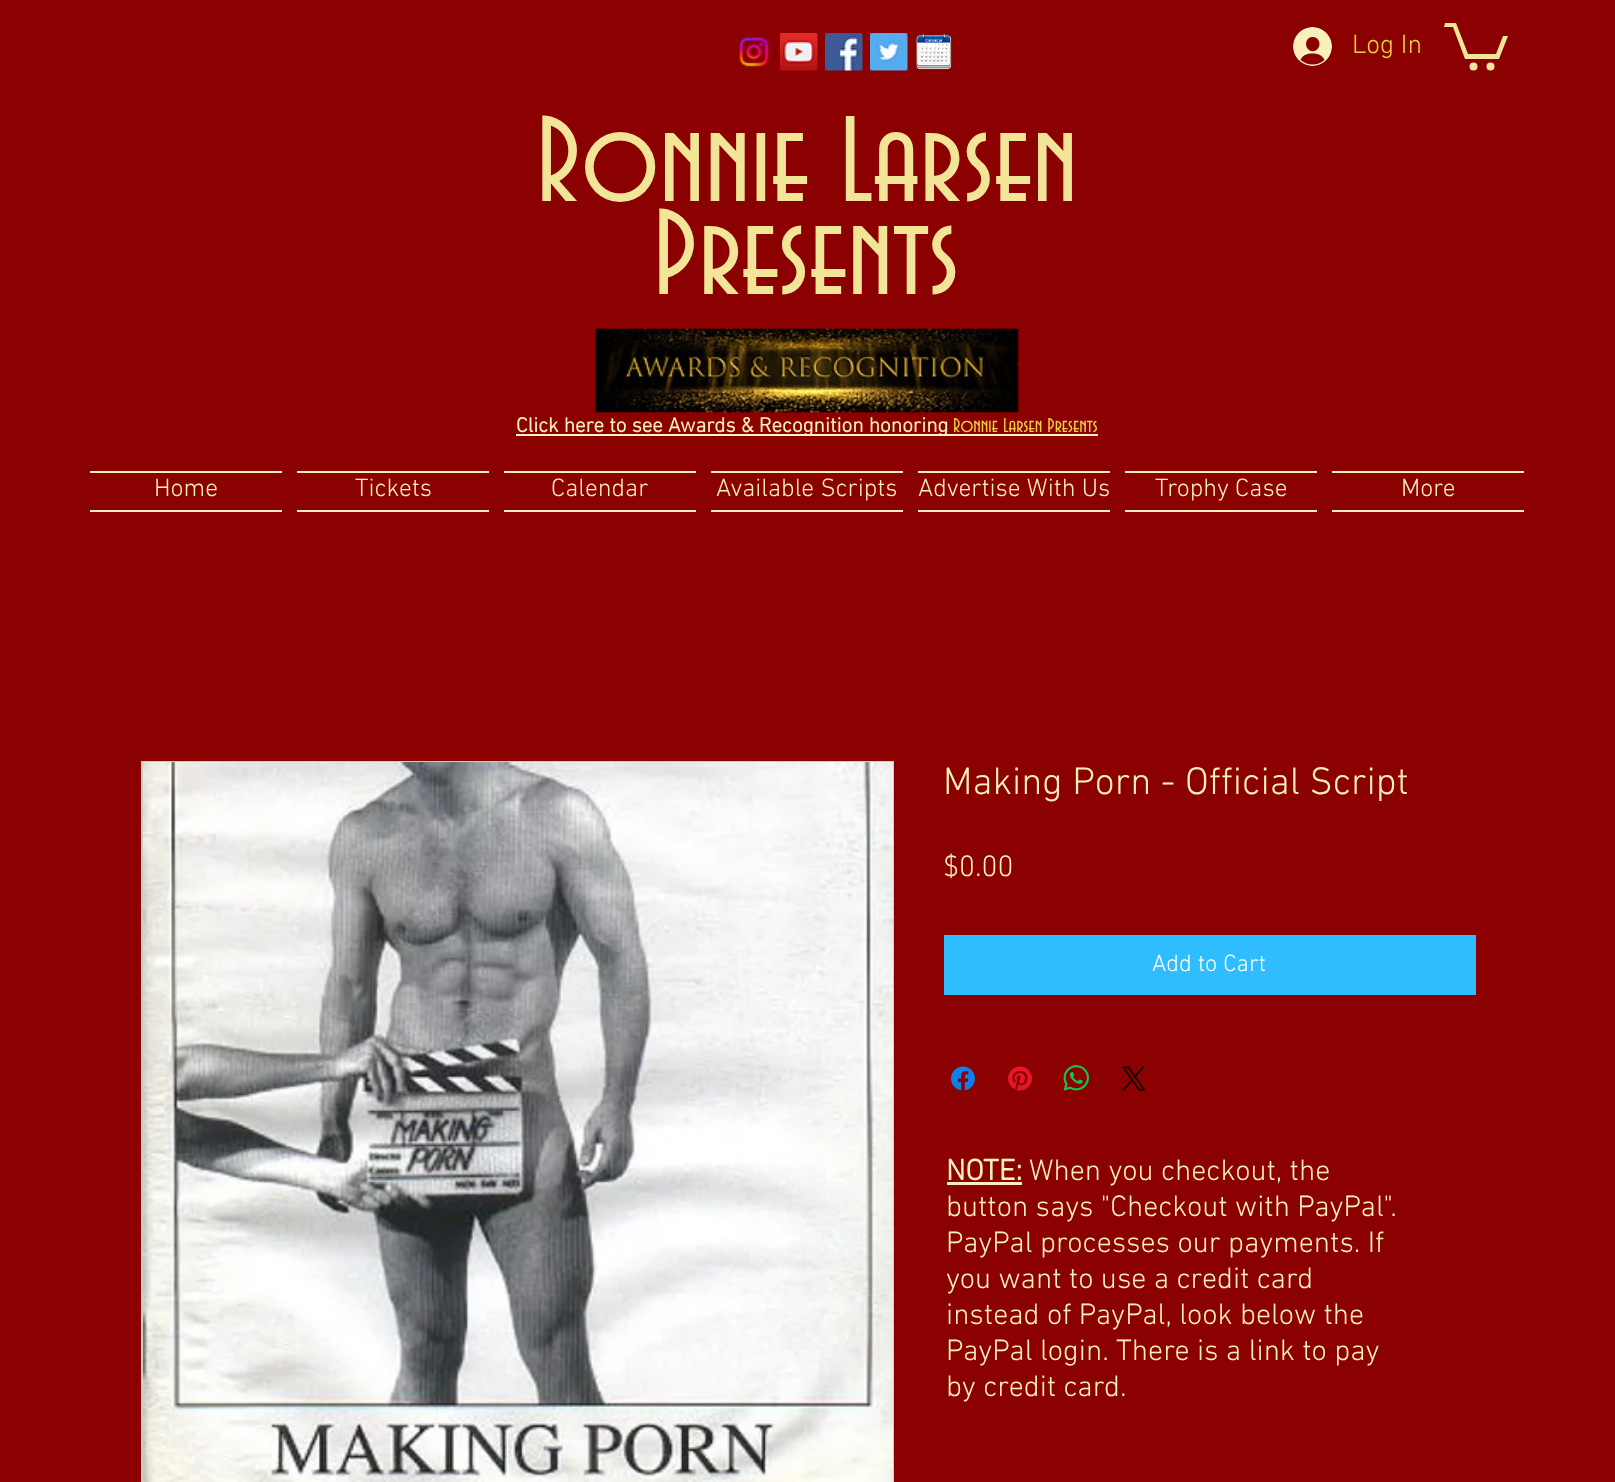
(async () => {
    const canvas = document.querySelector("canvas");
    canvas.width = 1615;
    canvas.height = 1482;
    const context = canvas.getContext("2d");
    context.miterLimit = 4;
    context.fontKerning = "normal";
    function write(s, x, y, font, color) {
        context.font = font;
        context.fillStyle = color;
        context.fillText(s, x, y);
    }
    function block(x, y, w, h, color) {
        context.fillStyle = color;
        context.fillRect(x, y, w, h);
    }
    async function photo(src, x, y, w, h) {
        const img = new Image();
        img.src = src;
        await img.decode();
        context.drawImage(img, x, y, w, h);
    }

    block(0, 0, 1615, 1482, "rgb(139, 0, 0)");
    await photo("media/1.png", 739, 37, 30, 30);
    await photo("media/2.png", 780, 33, 38, 38);
    await photo("media/3.png", 825, 33, 38, 38);
    await photo("media/4.png", 870, 33, 38, 38);
    await photo("media/5.png", 916, 33, 36, 37);
    await photo("media/6.png", 1293, 27, 39, 39);
    write("Log In", 1352, 53, "300 27px 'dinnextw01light'", "rgb(237, 210, 59)");
    context.fillStyle = "rgb(243, 229, 152)";
    context.beginPath();
    context.moveTo(1508, 36);
    context.lineTo(1499, 59);
    context.lineTo(1465, 59);
    context.lineTo(1453, 27);
    context.lineTo(1444, 27);
    context.lineTo(1445, 23);
    context.lineTo(1456, 23);
    context.lineTo(1468, 54);
    context.lineTo(1496, 54);
    context.lineTo(1503, 36);
    context.fill();
    context.beginPath();
    context.arc(1490.5, 66.5, 4, 0, Math.PI * 2);
    context.fill();
    context.beginPath();
    context.arc(1473.5, 66.5, 4, 0, Math.PI * 2);
    context.fill();
    write("Ronnie Larsen", 536, 201, "127.5px 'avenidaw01'", "rgb(243, 229, 152)");
    write("Presents", 653, 294, "127.5px 'avenidaw01'", "rgb(243, 229, 152)");
    await photo("media/7.png", 595, 328, 424, 85);
    block(516, 434, 582, 2, "rgb(249, 240, 187)");
    write("Click here to see Awards & Recognition honoring", 516, 432, "bold 21px 'dinnextw01light'", "rgb(249, 240, 187)");
    write("Ronnie Larsen Presents", 953, 432, "21px 'avenidaw01'", "rgb(237, 210, 59)");
    block(90, 471, 192, 2, "rgb(249, 240, 187)");
    block(90, 510, 192, 2, "rgb(249, 240, 187)");
    write("Home", 154, 496, "300 25.5px 'dinnextw01light'", "rgb(249, 240, 187)");
    block(297, 471, 192, 2, "rgb(249, 240, 187)");
    block(297, 510, 192, 2, "rgb(249, 240, 187)");
    write("Tickets", 355, 496, "300 25.5px 'dinnextw01light'", "rgb(249, 240, 187)");
    block(504, 471, 192, 2, "rgb(249, 240, 187)");
    block(504, 510, 192, 2, "rgb(249, 240, 187)");
    write("Calendar", 551, 496, "300 25.5px 'dinnextw01light'", "rgb(249, 240, 187)");
    block(711, 471, 192, 2, "rgb(249, 240, 187)");
    block(711, 510, 192, 2, "rgb(249, 240, 187)");
    write("Available Scripts", 716, 496, "300 25.5px 'dinnextw01light'", "rgb(249, 240, 187)");
    block(918, 471, 192, 2, "rgb(249, 240, 187)");
    block(918, 510, 192, 2, "rgb(249, 240, 187)");
    write("Advertise With Us", 918, 496, "300 25.5px 'dinnextw01light'", "rgb(249, 240, 187)");
    block(1125, 471, 192, 2, "rgb(249, 240, 187)");
    block(1125, 510, 192, 2, "rgb(249, 240, 187)");
    write("Trophy Case", 1155, 496, "300 25.5px 'dinnextw01light'", "rgb(249, 240, 187)");
    block(1332, 471, 192, 2, "rgb(249, 240, 187)");
    block(1332, 510, 192, 2, "rgb(249, 240, 187)");
    write("More", 1401, 496, "300 25.5px 'dinnextw01light'", "rgb(249, 240, 187)");
    context.strokeStyle = "rgb(204, 204, 204)";
    context.lineWidth = 2;
    context.strokeRect(142, 762, 751, 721);
    await photo("media/8.png", 143, 762, 750, 720);
    write("Making Porn - Official Script", 943, 794, "300 39px 'dinnextw01light'", "rgb(249, 240, 187)");
    write("$0.00", 943, 876, "300 30px 'dinnextw01light'", "rgb(249, 240, 187)");
    block(944, 935, 532, 60, "rgb(48, 189, 255)");
    write("Add to Cart", 1152, 971, "300 24px 'dinnextw01light'", "rgb(255, 255, 255)");
    await photo("media/9.png", 951, 1066, 24, 25);
    await photo("media/10.png", 1008, 1066, 24, 25);
    await photo("media/11.png", 1063, 1065, 26, 26);
    await photo("media/12.png", 1122, 1066, 24, 25);
    write("NOTE:", 946, 1180, "bold 30px 'dinnextw01light'", "rgb(249, 240, 187)");
    block(947, 1182, 75, 3, "rgb(249, 240, 187)");
    write("When you checkout, the", 1029, 1180, "300 30px 'dinnextw01light'", "rgb(249, 240, 187)");
    write("button says \"Checkout with PayPal\".", 946, 1216, "300 30px 'dinnextw01light'", "rgb(249, 240, 187)");
    write("PayPal processes our payments. If", 946, 1252, "300 30px 'dinnextw01light'", "rgb(249, 240, 187)");
    write("you want to use a credit card", 946, 1288, "300 30px 'dinnextw01light'", "rgb(249, 240, 187)");
    write("instead of PayPal, look below the", 946, 1324, "300 30px 'dinnextw01light'", "rgb(249, 240, 187)");
    write("PayPal login. There is a link to pay", 946, 1360, "300 30px 'dinnextw01light'", "rgb(249, 240, 187)");
    write("by credit card.", 946, 1396, "300 30px 'dinnextw01light'", "rgb(249, 240, 187)");
})();
